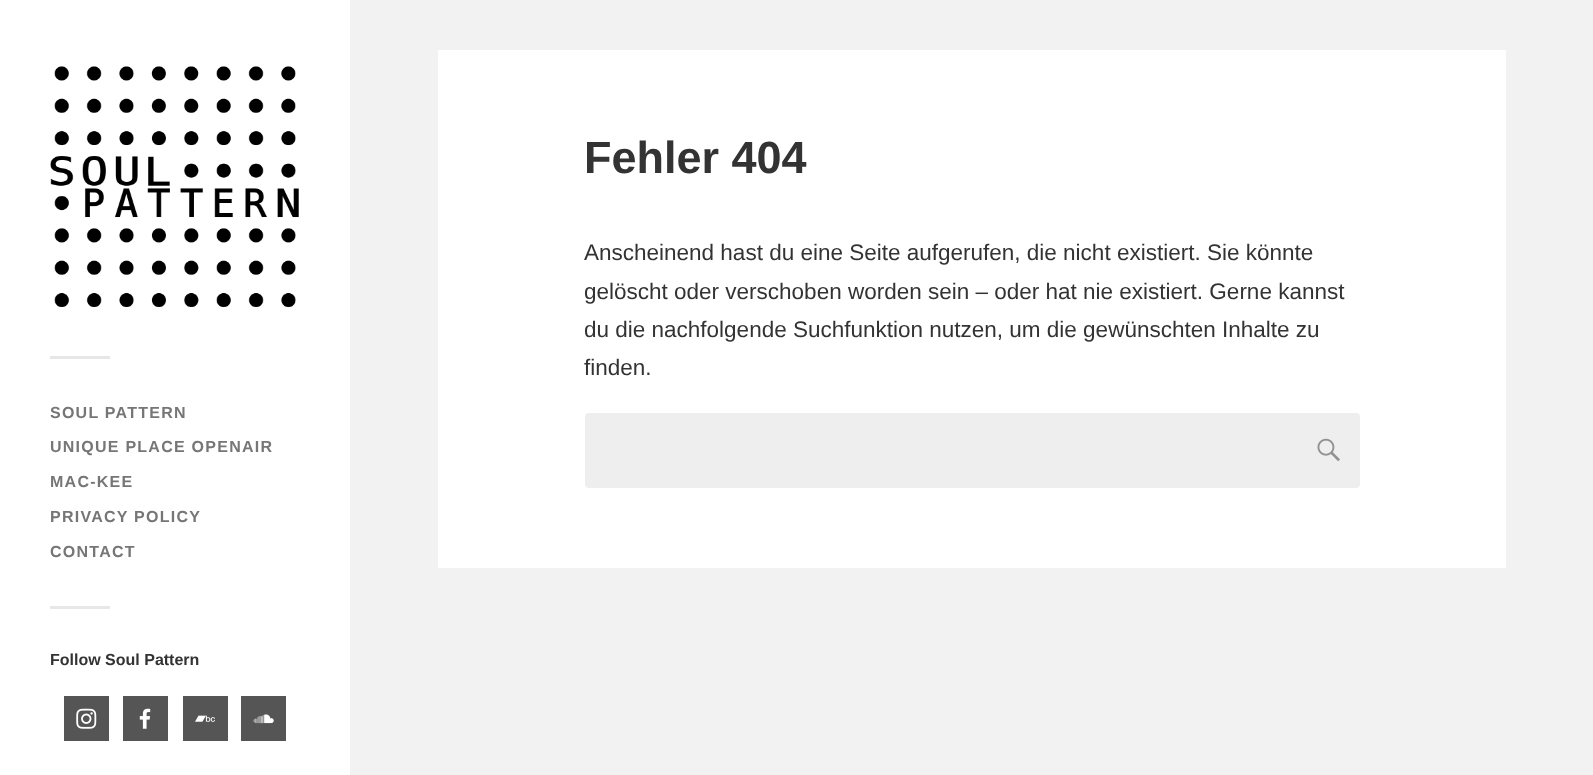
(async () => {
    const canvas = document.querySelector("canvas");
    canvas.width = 1593;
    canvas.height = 775;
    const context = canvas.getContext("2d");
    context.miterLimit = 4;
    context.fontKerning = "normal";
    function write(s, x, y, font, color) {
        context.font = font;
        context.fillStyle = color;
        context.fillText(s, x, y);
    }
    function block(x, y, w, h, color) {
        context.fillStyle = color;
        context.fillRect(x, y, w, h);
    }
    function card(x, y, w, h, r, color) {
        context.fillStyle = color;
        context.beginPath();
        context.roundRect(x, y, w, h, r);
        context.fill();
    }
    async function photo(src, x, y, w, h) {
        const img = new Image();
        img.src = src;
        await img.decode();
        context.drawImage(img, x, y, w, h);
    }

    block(0, 0, 1593, 775, "rgb(242, 242, 242)");
    block(438, 50, 1068, 518, "rgb(255, 255, 255)");
    write("Fehler 404", 584, 173, "bold 45px Liberation Sans", "rgb(51, 51, 51)");
    write("Anscheinend hast du eine Seite aufgerufen, die nicht existiert. Sie könnte", 584, 260, "22.5px Liberation Sans", "rgb(51, 51, 51)");
    write("gelöscht oder verschoben worden sein – oder hat nie existiert. Gerne kannst", 584, 299, "22.5px Liberation Sans", "rgb(51, 51, 51)");
    write("du die nachfolgende Suchfunktion nutzen, um die gewünschten Inhalte zu", 584, 337, "22.5px Liberation Sans", "rgb(51, 51, 51)");
    write("finden.", 584, 375, "22.5px Liberation Sans", "rgb(51, 51, 51)");
    card(585, 413, 775, 75, 4, "rgb(238, 238, 238)");
    await photo("media/1.png", 1317, 438, 23, 24);
    block(0, 0, 350, 775, "rgb(255, 255, 255)");
    await photo("media/2.png", 50, 66, 249, 241);
    block(50, 356, 60, 3, "rgb(231, 231, 231)");
    context.letterSpacing = "1.25px";
    write("SOUL PATTERN", 50, 418, "bold 16px Liberation Sans", "rgb(118, 118, 118)");
    write("UNIQUE PLACE OPENAIR", 50, 452, "bold 16px Liberation Sans", "rgb(118, 118, 118)");
    write("MAC-KEE", 50, 487, "bold 16px Liberation Sans", "rgb(118, 118, 118)");
    write("PRIVACY POLICY", 50, 522, "bold 16px Liberation Sans", "rgb(118, 118, 118)");
    write("CONTACT", 50, 557, "bold 16px Liberation Sans", "rgb(118, 118, 118)");
    block(50, 606, 60, 3, "rgb(231, 231, 231)");
    context.letterSpacing = "0px";
    write("Follow Soul Pattern", 50, 665, "bold 16px Liberation Sans", "rgb(51, 51, 51)");
    block(64, 696, 45, 45, "rgb(85, 85, 85)");
    await photo("media/3.png", 76, 708, 21, 21);
    block(123, 696, 45, 45, "rgb(85, 85, 85)");
    await photo("media/4.png", 139, 708, 12, 21);
    block(183, 696, 45, 45, "rgb(85, 85, 85)");
    await photo("media/5.png", 195, 715, 20, 7);
    block(241, 696, 45, 45, "rgb(85, 85, 85)");
    await photo("media/6.png", 253, 714, 21, 10);
})();
